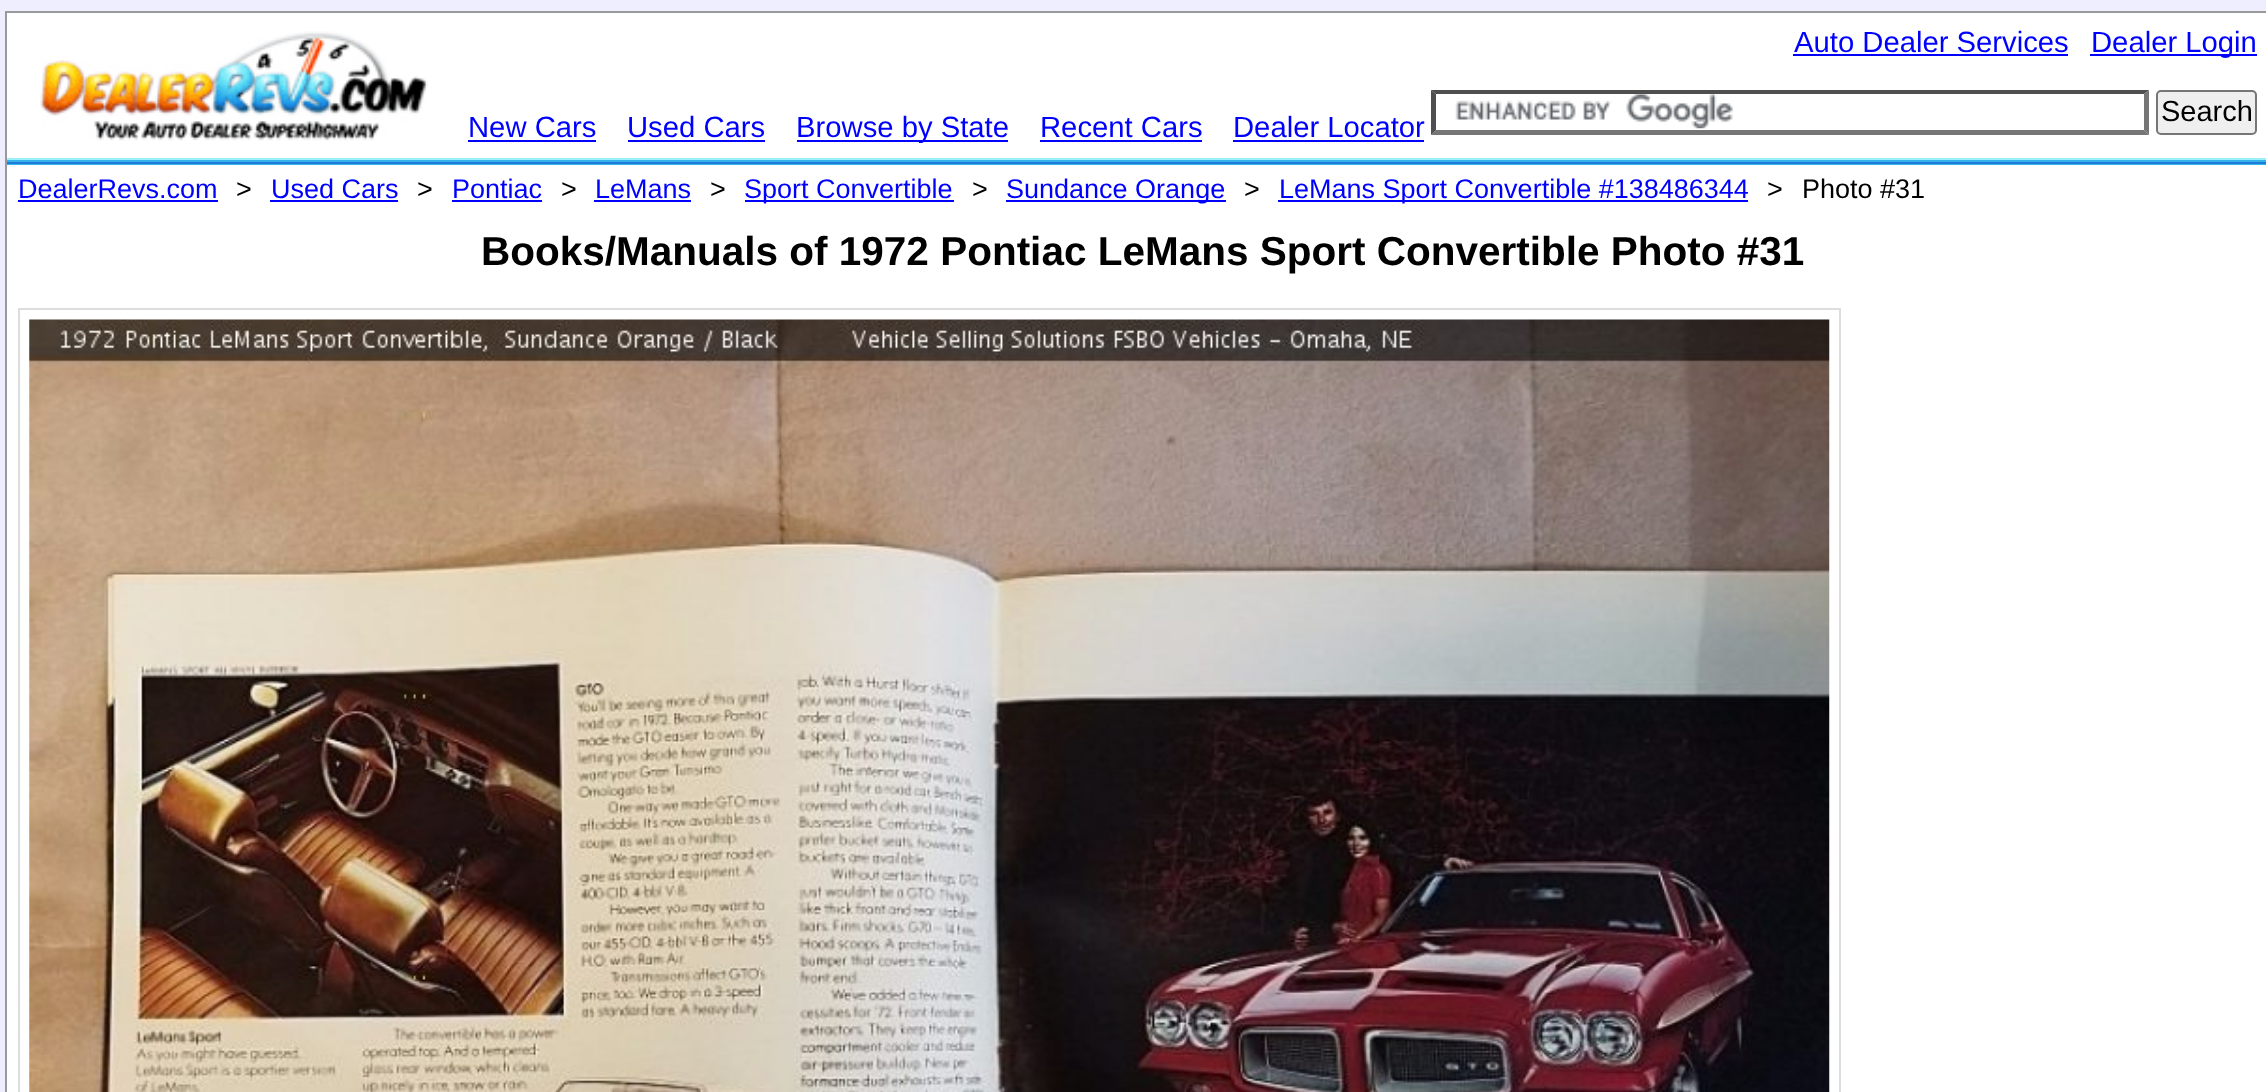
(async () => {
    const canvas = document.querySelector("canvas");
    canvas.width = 2266;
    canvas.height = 1092;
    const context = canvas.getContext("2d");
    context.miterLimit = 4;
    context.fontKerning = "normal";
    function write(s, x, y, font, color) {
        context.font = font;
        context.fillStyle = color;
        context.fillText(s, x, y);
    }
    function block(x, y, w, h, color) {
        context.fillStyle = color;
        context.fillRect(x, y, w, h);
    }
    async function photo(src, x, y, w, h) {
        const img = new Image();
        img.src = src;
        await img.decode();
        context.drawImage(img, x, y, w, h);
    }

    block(0, 0, 2266, 1092, "rgb(238, 238, 255)");
    context.fillStyle = "rgb(255, 255, 255)";
    context.beginPath();
    context.rect(6, 12, 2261, 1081);
    context.fill();
    context.strokeStyle = "rgb(153, 153, 153)";
    context.lineWidth = 2;
    context.stroke();
    await photo("media/1.png", 40, 31, 388, 110);
    write("New Cars", 468, 137, "29.25px Liberation Sans", "rgb(0, 0, 255)");
    block(468, 140, 128, 2, "rgb(0, 0, 255)");
    write("Used Cars", 627, 137, "29.25px Liberation Sans", "rgb(0, 0, 255)");
    block(628, 140, 137, 2, "rgb(0, 0, 255)");
    block(797, 140, 211, 2, "rgb(0, 0, 255)");
    write("Browse by State", 796, 137, "29.25px Liberation Sans", "rgb(0, 0, 255)");
    write("Recent Cars", 1040, 137, "29.25px Liberation Sans", "rgb(0, 0, 255)");
    block(1040, 140, 162, 2, "rgb(0, 0, 255)");
    write("Dealer Locator", 1233, 137, "29.25px Liberation Sans", "rgb(0, 0, 255)");
    block(1233, 140, 191, 2, "rgb(0, 0, 255)");
    write("Auto Dealer Services", 1794, 52, "29.25px Liberation Sans", "rgb(0, 0, 255)");
    block(1793, 54, 275, 2, "rgb(0, 0, 255)");
    block(2090, 54, 167, 2, "rgb(0, 0, 255)");
    write("Dealer Login", 2091, 52, "29.25px Liberation Sans", "rgb(0, 0, 255)");
    await photo("media/2.png", 1455, 94, 278, 35);
    context.fillStyle = "rgb(79, 79, 79)";
    context.beginPath();
    context.moveTo(1431, 90);
    context.lineTo(2149, 90);
    context.lineTo(2144, 94);
    context.lineTo(1436, 94);
    context.closePath();
    context.fill();
    context.fillStyle = "rgb(118, 118, 118)";
    context.beginPath();
    context.moveTo(2149, 90);
    context.lineTo(2149, 135);
    context.lineTo(2144, 130);
    context.lineTo(2144, 94);
    context.closePath();
    context.fill();
    context.beginPath();
    context.moveTo(2149, 135);
    context.lineTo(1431, 135);
    context.lineTo(1436, 130);
    context.lineTo(2144, 130);
    context.closePath();
    context.fill();
    context.fillStyle = "rgb(79, 79, 79)";
    context.beginPath();
    context.moveTo(1431, 135);
    context.lineTo(1431, 90);
    context.lineTo(1436, 94);
    context.lineTo(1436, 130);
    context.closePath();
    context.fill();
    context.fillStyle = "rgb(239, 239, 239)";
    context.beginPath();
    context.roundRect(2157, 91, 99, 43, 4);
    context.fill();
    context.strokeStyle = "rgb(118, 118, 118)";
    context.stroke();
    write("Search", 2161, 121, "29px Liberation Sans", "rgb(0, 0, 0)");
    block(7, 160, 2259, 5, "rgb(53, 178, 236)");
    block(7, 158, 2259, 2, "rgb(155, 240, 249)");
    block(7, 162, 2259, 2, "rgb(29, 126, 215)");
    write("DealerRevs.com", 18, 198, "27px Liberation Sans", "rgb(0, 0, 255)");
    block(18, 200, 200, 2, "rgb(0, 0, 255)");
    write(">", 236, 198, "27px Liberation Sans", "rgb(0, 0, 0)");
    write("Used Cars", 271, 198, "27px Liberation Sans", "rgb(0, 0, 255)");
    block(270, 200, 128, 2, "rgb(0, 0, 255)");
    write(">", 417, 198, "27px Liberation Sans", "rgb(0, 0, 0)");
    write("Pontiac", 452, 198, "27px Liberation Sans", "rgb(0, 0, 255)");
    block(452, 200, 90, 2, "rgb(0, 0, 255)");
    write(">", 561, 198, "27px Liberation Sans", "rgb(0, 0, 0)");
    write("LeMans", 595, 198, "27px Liberation Sans", "rgb(0, 0, 255)");
    block(594, 200, 97, 2, "rgb(0, 0, 255)");
    write(">", 710, 198, "27px Liberation Sans", "rgb(0, 0, 0)");
    block(745, 200, 209, 2, "rgb(0, 0, 255)");
    write("Sport Convertible", 744, 198, "27px Liberation Sans", "rgb(0, 0, 255)");
    write(">", 972, 198, "27px Liberation Sans", "rgb(0, 0, 0)");
    block(1006, 200, 220, 2, "rgb(0, 0, 255)");
    write("Sundance Orange", 1006, 198, "27px Liberation Sans", "rgb(0, 0, 255)");
    write(">", 1244, 198, "27px Liberation Sans", "rgb(0, 0, 0)");
    block(1278, 200, 470, 2, "rgb(0, 0, 255)");
    write("LeMans Sport Convertible #138486344", 1279, 198, "27px Liberation Sans", "rgb(0, 0, 255)");
    write(">", 1767, 198, "27px Liberation Sans", "rgb(0, 0, 0)");
    write("Photo #31", 1802, 198, "27px Liberation Sans", "rgb(0, 0, 0)");
    write("Books/Manuals of 1972 Pontiac LeMans Sport Convertible Photo #31", 481, 265, "bold 40.5px Liberation Sans", "rgb(0, 0, 0)");
    context.strokeStyle = "rgb(221, 221, 221)";
    context.strokeRect(19, 309, 1821, 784);
    await photo("media/3.png", 29, 319, 1801, 773);
})();
